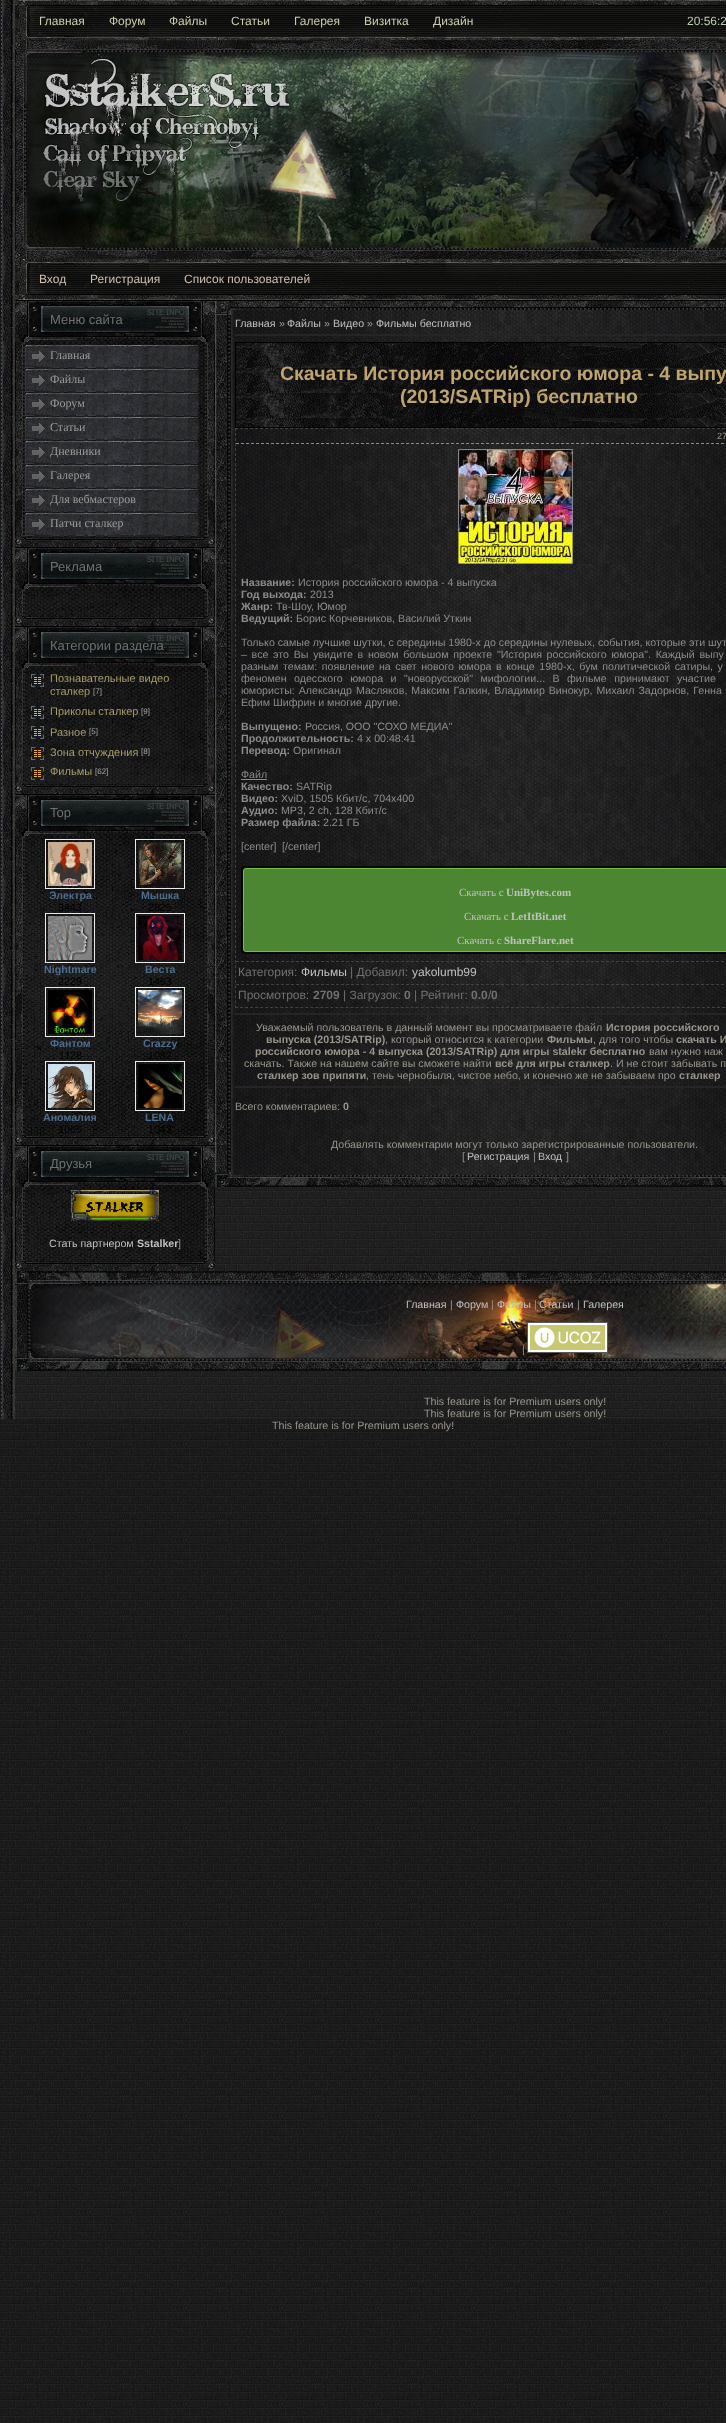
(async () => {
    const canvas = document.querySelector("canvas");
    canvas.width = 726;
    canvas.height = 2423;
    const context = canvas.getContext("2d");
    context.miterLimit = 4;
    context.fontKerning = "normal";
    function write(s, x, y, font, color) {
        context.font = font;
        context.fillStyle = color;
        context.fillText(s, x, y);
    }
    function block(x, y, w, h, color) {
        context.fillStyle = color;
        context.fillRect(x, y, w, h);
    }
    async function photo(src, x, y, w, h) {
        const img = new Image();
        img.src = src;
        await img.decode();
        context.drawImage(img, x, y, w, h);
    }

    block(0, 0, 726, 2423, "rgb(255, 255, 255)");
    await photo("media/1.png", 0, 1419, 726, 1004);
    await photo("media/2.png", 0, 0, 726, 1419);
    await photo("media/3.png", 15, 0, 711, 40);
    write("Главная", 39, 25, "12px Liberation Sans", "rgb(204, 204, 170)");
    write("Форум", 109, 25, "12px Liberation Sans", "rgb(204, 204, 170)");
    write("Файлы", 169, 25, "12px Liberation Sans", "rgb(204, 204, 170)");
    write("Статьи", 231, 25, "12px Liberation Sans", "rgb(204, 204, 170)");
    write("Галерея", 294, 25, "12px Liberation Sans", "rgb(204, 204, 170)");
    write("Визитка", 364, 25, "12px Liberation Sans", "rgb(204, 204, 170)");
    write("Дизайн", 433, 25, "12px Liberation Sans", "rgb(204, 204, 170)");
    write("20:56:2", 687, 25, "12px Liberation Sans", "rgb(188, 207, 176)");
    await photo("media/4.png", 15, 40, 711, 220);
    await photo("media/5.png", 15, 260, 711, 40);
    write("Вход", 39, 283, "12px Liberation Sans", "rgb(207, 190, 176)");
    write("Регистрация", 90, 283, "12px Liberation Sans", "rgb(207, 190, 176)");
    write("Список пользователей", 184, 283, "12px Liberation Sans", "rgb(207, 190, 176)");
    await photo("media/6.png", 15, 300, 200, 43);
    write("Меню сайта", 50, 324, "13px Liberation Sans", "rgb(112, 112, 112)");
    await photo("media/7.png", 15, 343, 200, 194);
    await photo("media/8.png", 25, 345, 174, 24);
    write("Главная", 50, 359, "12px Liberation Serif", "rgb(153, 153, 153)");
    await photo("media/9.png", 25, 369, 174, 24);
    write("Файлы", 50, 383, "12px Liberation Serif", "rgb(153, 153, 153)");
    await photo("media/10.png", 25, 393, 174, 24);
    write("Форум", 50, 407, "12px Liberation Serif", "rgb(153, 153, 153)");
    await photo("media/11.png", 25, 417, 174, 24);
    write("Статьи", 50, 431, "12px Liberation Serif", "rgb(153, 153, 153)");
    await photo("media/12.png", 25, 441, 174, 24);
    write("Дневники", 50, 455, "12px Liberation Serif", "rgb(153, 153, 153)");
    await photo("media/13.png", 25, 465, 174, 24);
    write("Галерея", 50, 479, "12px Liberation Serif", "rgb(153, 153, 153)");
    await photo("media/14.png", 25, 489, 174, 24);
    write("Для вебмастеров", 50, 503, "12px Liberation Serif", "rgb(153, 153, 153)");
    await photo("media/15.png", 25, 513, 174, 24);
    write("Патчи сталкер", 50, 527, "12px Liberation Serif", "rgb(153, 153, 153)");
    await photo("media/16.png", 15, 537, 200, 10);
    await photo("media/6.png", 15, 547, 200, 43);
    write("Реклама", 50, 571, "13px Liberation Sans", "rgb(112, 112, 112)");
    await photo("media/17.png", 15, 590, 200, 26);
    await photo("media/16.png", 15, 616, 200, 10);
    await photo("media/6.png", 15, 626, 200, 43);
    write("Категории раздела", 50, 650, "13px Liberation Sans", "rgb(112, 112, 112)");
    await photo("media/18.png", 15, 669, 200, 115);
    await photo("media/19.png", 31, 674, 13, 13);
    write("Познавательные видео", 50, 682, "11px Liberation Sans", "rgb(167, 155, 105)");
    write("сталкер", 50, 695, "11px Liberation Sans", "rgb(167, 155, 105)");
    write("[7]", 93, 694, "8px Liberation Sans", "rgb(165, 165, 165)");
    await photo("media/19.png", 31, 706, 13, 13);
    write("Приколы сталкер", 50, 715, "11px Liberation Sans", "rgb(167, 155, 105)");
    write("[9]", 141, 714, "8px Liberation Sans", "rgb(165, 165, 165)");
    await photo("media/19.png", 31, 726, 13, 13);
    write("Разное", 50, 736, "11px Liberation Sans", "rgb(167, 155, 105)");
    write("[5]", 89, 734, "8px Liberation Sans", "rgb(165, 165, 165)");
    await photo("media/19.png", 31, 747, 13, 13);
    write("Зона отчуждения", 50, 756, "11px Liberation Sans", "rgb(167, 155, 105)");
    write("[8]", 141, 754, "8px Liberation Sans", "rgb(165, 165, 165)");
    await photo("media/19.png", 31, 767, 13, 13);
    write("Фильмы", 50, 775, "11px Liberation Sans", "rgb(167, 155, 105)");
    write("[62]", 95, 774, "8px Liberation Sans", "rgb(165, 165, 165)");
    await photo("media/16.png", 15, 784, 200, 10);
    await photo("media/6.png", 15, 794, 200, 43);
    write("Top", 50, 817, "13px Liberation Sans", "rgb(112, 112, 112)");
    await photo("media/20.png", 15, 837, 200, 298);
    context.strokeStyle = "rgb(234, 234, 234)";
    context.strokeRect(45.5, 839.5, 49, 49);
    await photo("media/21.png", 48, 842, 44, 44);
    write("Электра", 49, 899, "bold 10.65px Liberation Sans", "rgb(78, 109, 139)");
    write("3443", 58, 911, "10.65px Liberation Sans", "rgb(0, 0, 0)");
    context.strokeRect(135.5, 839.5, 49, 49);
    await photo("media/22.png", 138, 842, 44, 44);
    write("Мышка", 141, 899, "bold 10.65px Liberation Sans", "rgb(78, 109, 139)");
    write("2825", 148, 911, "10.65px Liberation Sans", "rgb(0, 0, 0)");
    context.strokeRect(45.5, 913.5, 49, 49);
    await photo("media/23.png", 48, 916, 44, 44);
    write("Nightmare", 44, 973, "bold 10.65px Liberation Sans", "rgb(78, 109, 139)");
    write("2229", 58, 985, "10.65px Liberation Sans", "rgb(0, 0, 0)");
    context.strokeRect(135.5, 913.5, 49, 49);
    await photo("media/24.png", 138, 916, 44, 44);
    write("Веста", 145, 973, "bold 10.65px Liberation Sans", "rgb(78, 109, 139)");
    write("1463", 148, 985, "10.65px Liberation Sans", "rgb(0, 0, 0)");
    context.strokeRect(45.5, 987.5, 49, 49);
    await photo("media/25.png", 48, 990, 44, 44);
    write("Фaнтом", 50, 1047, "bold 10.65px Liberation Sans", "rgb(78, 109, 139)");
    write("1128", 59, 1059, "10.65px Liberation Sans", "rgb(0, 0, 0)");
    context.strokeRect(135.5, 987.5, 49, 49);
    await photo("media/26.png", 138, 990, 44, 44);
    write("Crazzy", 143, 1047, "bold 10.65px Liberation Sans", "rgb(78, 109, 139)");
    write("1082", 148, 1059, "10.65px Liberation Sans", "rgb(0, 0, 0)");
    context.strokeRect(45.5, 1061.5, 49, 49);
    await photo("media/27.png", 48, 1064, 44, 44);
    write("Аномалия", 43, 1121, "bold 10.65px Liberation Sans", "rgb(78, 109, 139)");
    write("1065", 58, 1133, "10.65px Liberation Sans", "rgb(0, 0, 0)");
    context.strokeRect(135.5, 1061.5, 49, 49);
    await photo("media/28.png", 138, 1064, 44, 44);
    write("LENA", 145, 1121, "bold 10.65px Liberation Sans", "rgb(78, 109, 139)");
    write("1043", 148, 1133, "10.65px Liberation Sans", "rgb(0, 0, 0)");
    await photo("media/16.png", 15, 1135, 200, 10);
    await photo("media/6.png", 15, 1145, 200, 43);
    write("Друзья", 50, 1168, "13px Liberation Sans", "rgb(112, 112, 112)");
    await photo("media/29.png", 15, 1188, 200, 73);
    await photo("media/30.png", 71, 1190, 88, 31);
    write("Стать партнером", 49, 1247, "10.65px Liberation Sans", "rgb(192, 192, 192)");
    write("Sstalker", 137, 1247, "bold 10.65px Liberation Sans", "rgb(192, 192, 192)");
    write("]", 178, 1247, "10.65px Liberation Sans", "rgb(153, 149, 140)");
    await photo("media/16.png", 15, 1261, 200, 10);
    await photo("media/31.png", 215, 300, 511, 15);
    await photo("media/32.png", 215, 315, 511, 857);
    write("Главная", 235, 327, "10.65px Liberation Sans", "rgb(192, 192, 192)");
    write("»", 279, 327, "10.65px Liberation Sans", "rgb(153, 149, 140)");
    write("Файлы", 287, 327, "10.65px Liberation Sans", "rgb(192, 192, 192)");
    write("»", 324, 327, "10.65px Liberation Sans", "rgb(153, 149, 140)");
    write("Видео", 333, 327, "10.65px Liberation Sans", "rgb(192, 192, 192)");
    write("»", 367, 327, "10.65px Liberation Sans", "rgb(153, 149, 140)");
    write("Фильмы бесплатно", 376, 327, "10.65px Liberation Sans", "rgb(192, 192, 192)");
    block(235, 334, 491, 2, "rgb(37, 37, 37)");
    await photo("media/33.png", 236, 343, 490, 84);
    context.strokeStyle = "rgb(0, 0, 0)";
    context.strokeRect(235.5, 342.5, 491, 85);
    write("Скачать История российского юмора - 4 выпу", 280, 380, "bold 19.5px Liberation Sans", "rgb(191, 165, 109)");
    write("(2013/SATRip) бесплатно", 400, 403, "bold 19.5px Liberation Sans", "rgb(191, 165, 109)");
    context.beginPath();
    context.moveTo(235, 428.5);
    context.lineTo(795, 428.5);
    context.strokeStyle = "rgb(66, 66, 66)";
    context.setLineDash([3, 2.02]);
    context.stroke();
    context.beginPath();
    context.moveTo(235, 1007.5);
    context.lineTo(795, 1007.5);
    context.stroke();
    context.beginPath();
    context.moveTo(235.5, 428);
    context.lineTo(235.5, 1008);
    context.stroke();
    write("27", 717, 439, "9px Liberation Sans", "rgb(153, 149, 140)");
    context.beginPath();
    context.moveTo(236, 443.5);
    context.lineTo(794, 443.5);
    context.strokeStyle = "rgb(140, 140, 140)";
    context.setLineDash([3, 2]);
    context.stroke();
    await photo("media/34.png", 458, 449, 115, 115);
    write("Название:", 241, 586, "bold 10.65px Liberation Sans", "rgb(140, 140, 140)");
    write("История российского юмора - 4 выпуска", 298, 586, "10.65px Liberation Sans", "rgb(140, 140, 140)");
    write("Год выхода:", 241, 598, "bold 10.65px Liberation Sans", "rgb(140, 140, 140)");
    write("2013", 310, 598, "10.65px Liberation Sans", "rgb(140, 140, 140)");
    write("Жанр:", 241, 610, "bold 10.65px Liberation Sans", "rgb(140, 140, 140)");
    write("Тв-Шоу, Юмор", 276, 610, "10.65px Liberation Sans", "rgb(140, 140, 140)");
    write("Ведущий:", 241, 622, "bold 10.65px Liberation Sans", "rgb(140, 140, 140)");
    write("Борис Корчевников, Василий Уткин", 296, 622, "10.65px Liberation Sans", "rgb(140, 140, 140)");
    write("Только самые лучшие шутки, с середины 1980-х до середины нулевых, события, которые эти шут", 241, 646, "10.65px Liberation Sans", "rgb(140, 140, 140)");
    context.wordSpacing = "1.75px";
    write("– все это Вы увидите в новом большом проекте \"История российского юмора\". Каждый выпу", 241, 658, "10.65px Liberation Sans", "rgb(140, 140, 140)");
    context.wordSpacing = "1.6px";
    write("разным темам: появление на свет нового юмора в конце 1980-х, бум политической сатиры, у", 241, 670, "10.65px Liberation Sans", "rgb(140, 140, 140)");
    context.wordSpacing = "4.5px";
    write("феномен одесского юмора и \"новорусской\" мифологии... В фильме принимают участие", 241, 682, "10.65px Liberation Sans", "rgb(140, 140, 140)");
    context.wordSpacing = "1px";
    write("юмористы: Александр Масляков, Максим Галкин, Владимир Винокур, Михаил Задорнов, Генна", 241, 694, "10.65px Liberation Sans", "rgb(140, 140, 140)");
    context.wordSpacing = "0px";
    write("Ефим Шифрин и многие другие.", 241, 706, "10.65px Liberation Sans", "rgb(140, 140, 140)");
    write("Выпущено:", 241, 730, "bold 10.65px Liberation Sans", "rgb(140, 140, 140)");
    write("Россия, ООО \"СОХО МЕДИА\"", 305, 730, "10.65px Liberation Sans", "rgb(140, 140, 140)");
    write("Продолжительность:", 241, 742, "bold 10.65px Liberation Sans", "rgb(140, 140, 140)");
    write("4 х 00:48:41", 357, 742, "10.65px Liberation Sans", "rgb(140, 140, 140)");
    write("Перевод:", 241, 754, "bold 10.65px Liberation Sans", "rgb(140, 140, 140)");
    write("Оригинал", 293, 754, "10.65px Liberation Sans", "rgb(140, 140, 140)");
    write("Файл", 241, 778, "10.65px Liberation Sans", "rgb(140, 140, 140)");
    block(241, 779, 26, 1, "rgb(140, 140, 140)");
    write("Качество:", 241, 790, "bold 10.65px Liberation Sans", "rgb(140, 140, 140)");
    write("SATRip", 296, 790, "10.65px Liberation Sans", "rgb(140, 140, 140)");
    write("Видео:", 241, 802, "bold 10.65px Liberation Sans", "rgb(140, 140, 140)");
    write("XviD, 1505 Кбит/с, 704x400", 281, 802, "10.65px Liberation Sans", "rgb(140, 140, 140)");
    write("Аудио:", 241, 814, "bold 10.65px Liberation Sans", "rgb(140, 140, 140)");
    write("MP3, 2 ch, 128 Кбит/с", 281, 814, "10.65px Liberation Sans", "rgb(140, 140, 140)");
    write("Размер файла:", 241, 826, "bold 10.65px Liberation Sans", "rgb(140, 140, 140)");
    write("2.21 ГБ", 323, 826, "10.65px Liberation Sans", "rgb(140, 140, 140)");
    write("[center]", 241, 850, "10.65px Liberation Sans", "rgb(140, 140, 140)");
    write("[/center]", 282, 850, "10.65px Liberation Sans", "rgb(140, 140, 140)");
    context.beginPath();
    context.roundRect(242, 867, 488, 86, 2);
    context.strokeStyle = "rgb(8, 8, 8)";
    context.lineWidth = 2;
    context.setLineDash([]);
    context.stroke();
    context.fillStyle = "rgb(77, 134, 51)";
    context.beginPath();
    context.roundRect(243.5, 868.5, 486, 83, 2.5);
    context.fill();
    context.strokeStyle = "rgb(113, 191, 77)";
    context.lineWidth = 1;
    context.stroke();
    write("Скачать с", 459, 896, "11px Liberation Serif", "rgb(192, 192, 192)");
    write("UniBytes.com", 506, 896, "bold 11px Liberation Serif", "rgb(192, 192, 192)");
    write("Скачать с", 464, 920, "11px Liberation Serif", "rgb(192, 192, 192)");
    write("LetItBit.net", 511, 920, "bold 11px Liberation Serif", "rgb(192, 192, 192)");
    write("Скачать с", 457, 944, "11px Liberation Serif", "rgb(192, 192, 192)");
    write("ShareFlare.net", 504, 944, "bold 11px Liberation Serif", "rgb(192, 192, 192)");
    context.beginPath();
    context.moveTo(236, 961.5);
    context.lineTo(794, 961.5);
    context.strokeStyle = "rgb(66, 66, 66)";
    context.setLineDash([3, 2]);
    context.stroke();
    write("Категория:", 238, 976, "12px Liberation Sans", "rgb(112, 112, 112)");
    write("Фильмы", 301, 976, "12px Liberation Sans", "rgb(192, 192, 192)");
    write("| Добавил:", 350, 976, "12px Liberation Sans", "rgb(112, 112, 112)");
    write("yakolumb99", 412, 976, "12px Liberation Sans", "rgb(192, 192, 192)");
    context.beginPath();
    context.moveTo(236, 984.5);
    context.lineTo(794, 984.5);
    context.stroke();
    write("Просмотров:", 238, 999, "12px Liberation Sans", "rgb(112, 112, 112)");
    write("2709", 313, 999, "bold 12px Liberation Sans", "rgb(112, 112, 112)");
    write("| Загрузок:", 343, 999, "12px Liberation Sans", "rgb(112, 112, 112)");
    write("0", 404, 999, "bold 12px Liberation Sans", "rgb(112, 112, 112)");
    write("| Рейтинг:", 414, 999, "12px Liberation Sans", "rgb(112, 112, 112)");
    write("0.0", 471, 999, "bold 12px Liberation Sans", "rgb(112, 112, 112)");
    write("/", 488, 999, "12px Liberation Sans", "rgb(112, 112, 112)");
    write("0", 491, 999, "bold 12px Liberation Sans", "rgb(112, 112, 112)");
    block(235, 1013, 491, 2, "rgb(37, 37, 37)");
    write("Уважаемый пользователь в данный момент вы просматриваете файл", 256, 1031, "10.65px Liberation Sans", "rgb(153, 149, 140)");
    write("История российского", 606, 1031, "bold 10.65px Liberation Sans", "rgb(153, 149, 140)");
    write("выпуска (2013/SATRip)", 266, 1043, "bold 10.65px Liberation Sans", "rgb(153, 149, 140)");
    write(", который относится к категории", 385, 1043, "10.65px Liberation Sans", "rgb(153, 149, 140)");
    write("Фильмы", 547, 1043, "bold 10.65px Liberation Sans", "rgb(153, 149, 140)");
    write(", для того чтобы", 593, 1043, "10.65px Liberation Sans", "rgb(153, 149, 140)");
    write("скачать И", 676, 1043, "bold 10.65px Liberation Sans", "rgb(153, 149, 140)");
    write("российского юмора - 4 выпуска (2013/SATRip) для игры stalekr бесплатно", 255, 1055, "bold 10.65px Liberation Sans", "rgb(153, 149, 140)");
    write("вам нужно наж", 649, 1055, "10.65px Liberation Sans", "rgb(153, 149, 140)");
    write("скачать. Также на нашем сайте вы сможете найти", 244, 1067, "10.65px Liberation Sans", "rgb(153, 149, 140)");
    write("всё для игры сталкер", 495, 1067, "bold 10.65px Liberation Sans", "rgb(153, 149, 140)");
    write(". И не стоит забывать п", 610, 1067, "10.65px Liberation Sans", "rgb(153, 149, 140)");
    write("сталкер зов припяти", 257, 1079, "bold 10.65px Liberation Sans", "rgb(153, 149, 140)");
    write(", тень чернобыля, чистое небо, и конечно же не забываем про", 366, 1079, "10.65px Liberation Sans", "rgb(153, 149, 140)");
    write("сталкер", 679, 1079, "bold 10.65px Liberation Sans", "rgb(153, 149, 140)");
    block(235, 1086, 491, 2, "rgb(37, 37, 37)");
    write("Всего комментариев:", 235, 1110, "10.65px Liberation Sans", "rgb(153, 149, 140)");
    write("0", 343, 1110, "bold 10.65px Liberation Sans", "rgb(153, 149, 140)");
    write("Добавлять комментарии могут только зарегистрированные пользователи.", 331, 1148, "10.65px Liberation Sans", "rgb(153, 149, 140)");
    write("[", 462, 1160, "10.65px Liberation Sans", "rgb(153, 149, 140)");
    write("Регистрация", 467, 1160, "10.65px Liberation Sans", "rgb(192, 192, 192)");
    write("|", 533, 1160, "10.65px Liberation Sans", "rgb(153, 149, 140)");
    write("Вход", 538, 1160, "10.65px Liberation Sans", "rgb(192, 192, 192)");
    write("]", 566, 1160, "10.65px Liberation Sans", "rgb(153, 149, 140)");
    await photo("media/35.png", 215, 1172, 511, 15);
    await photo("media/36.png", 15, 1271, 711, 100);
    write("Главная", 406, 1308, "10.65px Liberation Sans", "rgb(192, 192, 192)");
    write("|", 450, 1308, "10.65px Liberation Sans", "rgb(153, 149, 140)");
    write("Форум", 456, 1308, "10.65px Liberation Sans", "rgb(192, 192, 192)");
    write("|", 491, 1308, "10.65px Liberation Sans", "rgb(153, 149, 140)");
    write("Файлы", 497, 1308, "10.65px Liberation Sans", "rgb(192, 192, 192)");
    write("|", 534, 1308, "10.65px Liberation Sans", "rgb(153, 149, 140)");
    write("Статьи", 539, 1308, "10.65px Liberation Sans", "rgb(192, 192, 192)");
    write("|", 577, 1308, "10.65px Liberation Sans", "rgb(153, 149, 140)");
    write("Галерея", 583, 1308, "10.65px Liberation Sans", "rgb(192, 192, 192)");
    write("|", 522, 1353, "10.65px Liberation Sans", "rgb(153, 149, 140)");
    await photo("media/37.png", 527, 1322, 81, 31);
    write("This feature is for Premium users only!", 424, 1405, "10.65px Liberation Sans", "rgb(153, 149, 140)");
    write("This feature is for Premium users only!", 424, 1417, "10.65px Liberation Sans", "rgb(153, 149, 140)");
    write("This feature is for Premium users only!", 272, 1429, "10.65px Liberation Sans", "rgb(153, 149, 140)");
})();
